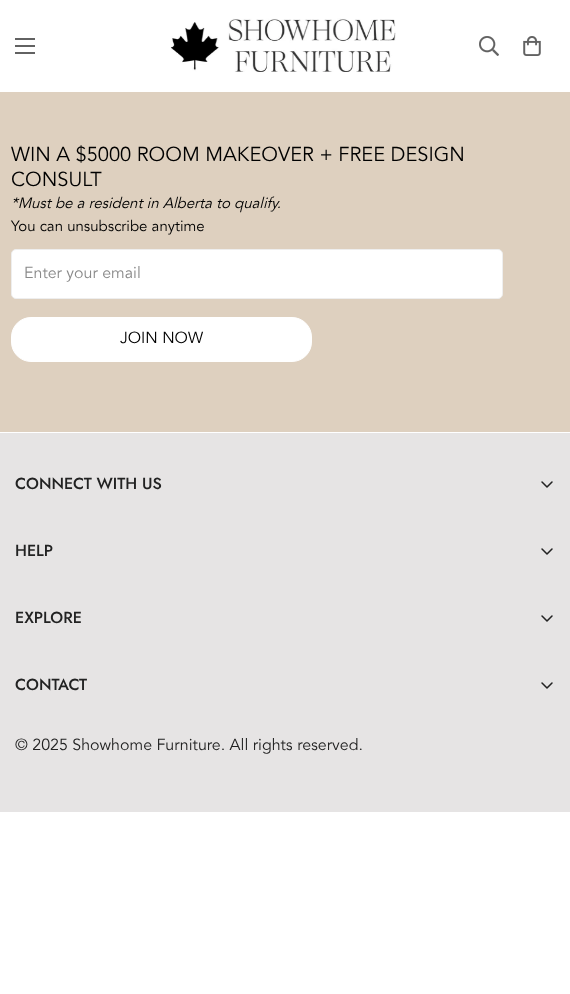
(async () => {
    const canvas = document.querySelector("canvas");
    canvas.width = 570;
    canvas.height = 994;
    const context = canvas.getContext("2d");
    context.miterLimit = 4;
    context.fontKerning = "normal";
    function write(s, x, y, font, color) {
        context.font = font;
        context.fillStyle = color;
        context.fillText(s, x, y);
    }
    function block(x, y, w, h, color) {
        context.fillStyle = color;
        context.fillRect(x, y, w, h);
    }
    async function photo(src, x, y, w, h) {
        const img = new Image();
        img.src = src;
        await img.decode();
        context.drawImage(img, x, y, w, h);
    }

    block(0, 0, 570, 994, "rgb(255, 255, 255)");
    block(15, 45, 20, 2, "rgb(98, 98, 98)");
    block(15, 38, 20, 2, "rgb(98, 98, 98)");
    block(15, 52, 20, 2, "rgb(98, 98, 98)");
    await photo("media/1.png", 170, 18, 226, 54);
    await photo("media/2.png", 479, 36, 20, 20);
    await photo("media/3.png", 523, 36, 18, 20);
    block(0, 92, 570, 340, "rgb(222, 208, 191)");
    write("WIN A $5000 ROOM MAKEOVER + FREE DESIGN", 11, 161, "20px Avenir", "rgb(0, 0, 0)");
    write("CONSULT", 11, 186, "20px Avenir", "rgb(0, 0, 0)");
    write("*Must be a resident in Alberta to qualify.", 11, 208, "italic 15px Avenir", "rgb(0, 0, 0)");
    write("You can unsubscribe anytime", 11, 231, "15px Avenir", "rgb(0, 0, 0)");
    context.fillStyle = "rgb(255, 255, 255)";
    context.beginPath();
    context.roundRect(11.5, 249.5, 491, 49, 4.5);
    context.fill();
    context.strokeStyle = "rgb(238, 238, 238)";
    context.stroke();
    write("Enter your email", 24, 278, "16px Avenir", "rgb(137, 137, 137)");
    context.fillStyle = "rgb(255, 255, 255)";
    context.beginPath();
    context.roundRect(11.5, 317.5, 300, 44, 19.5);
    context.fill();
    context.strokeStyle = "rgb(255, 255, 255)";
    context.stroke();
    write("JOIN NOW", 120, 343, "16px Avenir", "rgb(0, 0, 0)");
    block(0, 433, 570, 379, "rgb(230, 228, 228)");
    write("CONNECT WITH US", 15, 489, "500 16px Jost", "rgb(34, 34, 34)");
    await photo("media/4.png", 541, 481, 12, 7);
    write("HELP", 15, 556, "500 16px Jost", "rgb(34, 34, 34)");
    await photo("media/4.png", 541, 548, 12, 7);
    write("EXPLORE", 15, 623, "500 16px Jost", "rgb(34, 34, 34)");
    await photo("media/4.png", 541, 615, 12, 7);
    write("CONTACT", 15, 690, "500 16px Jost", "rgb(34, 34, 34)");
    await photo("media/4.png", 541, 682, 12, 7);
    write("© 2025 Showhome Furniture. All rights reserved.", 15, 750, "16px Avenir", "rgb(34, 34, 34)");
})();
